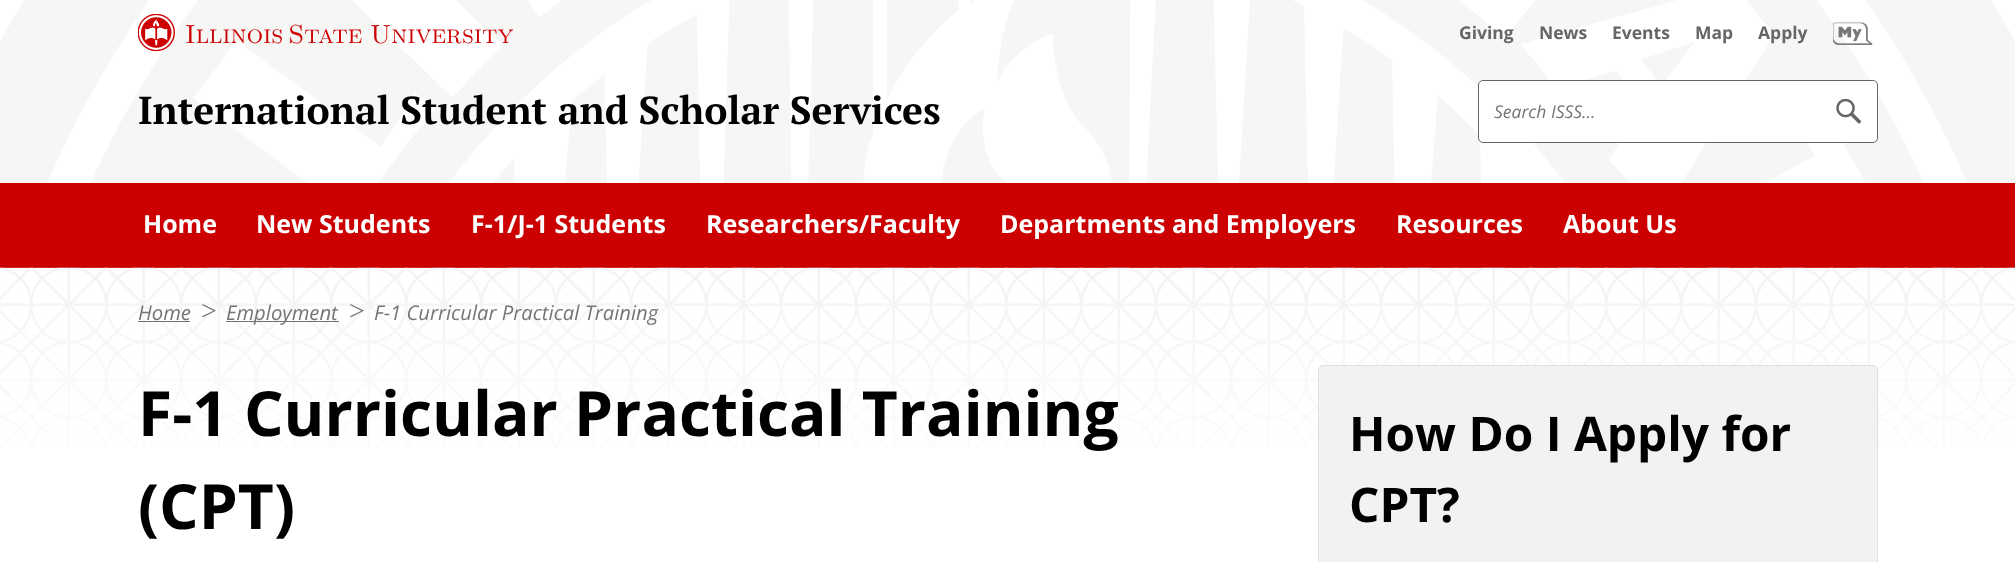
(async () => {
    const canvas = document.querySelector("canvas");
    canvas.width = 2015;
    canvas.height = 562;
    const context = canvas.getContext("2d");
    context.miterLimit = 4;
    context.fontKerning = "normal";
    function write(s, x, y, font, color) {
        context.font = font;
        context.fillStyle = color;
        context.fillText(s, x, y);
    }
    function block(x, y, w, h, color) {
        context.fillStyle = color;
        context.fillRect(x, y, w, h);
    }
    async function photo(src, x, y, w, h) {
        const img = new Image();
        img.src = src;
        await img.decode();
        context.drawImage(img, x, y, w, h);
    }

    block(0, 0, 2015, 562, "rgb(255, 255, 255)");
    await photo("media/1.png", 0, 0, 2015, 183);
    await photo("media/2.png", 138, 14, 37, 37);
    context.wordSpacing = "-5px";
    write("Illinois State", 185, 43, "26.25px Latin Modern Roman Caps", "rgb(204, 0, 0)");
    context.wordSpacing = "0px";
    write("University", 370, 43, "26.25px Latin Modern Roman Caps", "rgb(204, 0, 0)");
    write("Giving", 1459, 39, "bold 17.5px Open Sans", "rgb(102, 102, 102)");
    write("News", 1539, 39, "bold 17.5px Open Sans", "rgb(102, 102, 102)");
    write("Events", 1612, 39, "bold 17.5px Open Sans", "rgb(102, 102, 102)");
    write("Map", 1695, 39, "bold 17.5px Open Sans", "rgb(102, 102, 102)");
    write("Apply", 1758, 39, "bold 17.5px Open Sans", "rgb(102, 102, 102)");
    await photo("media/3.png", 1833, 22, 40, 23);
    write("International Student and Scholar Services", 138, 124, "bold 39.1px PT Serif", "rgb(0, 0, 0)");
    context.fillStyle = "rgb(255, 255, 255)";
    context.beginPath();
    context.roundRect(1478.5, 80.5, 399, 62, 4.5);
    context.fill();
    context.strokeStyle = "rgb(102, 102, 102)";
    context.stroke();
    write("Search ISSS...", 1494, 118, "italic 17.5px Open Sans", "rgb(117, 117, 117)");
    await photo("media/4.png", 1836, 99, 25, 25);
    block(0, 183, 2015, 85, "rgb(204, 0, 0)");
    write("Home", 143, 233, "bold 25px Open Sans", "rgb(255, 255, 255)");
    write("New Students", 256, 233, "bold 25px Open Sans", "rgb(255, 255, 255)");
    write("F-1/J-1 Students", 471, 233, "bold 25px Open Sans", "rgb(255, 255, 255)");
    write("Researchers/Faculty", 706, 233, "bold 25px Open Sans", "rgb(255, 255, 255)");
    write("Departments and Employers", 1000, 233, "bold 25px Open Sans", "rgb(255, 255, 255)");
    write("Resources", 1396, 233, "bold 25px Open Sans", "rgb(255, 255, 255)");
    write("About Us", 1563, 233, "bold 25px Open Sans", "rgb(255, 255, 255)");
    await photo("media/5.png", 0, 267, 2015, 181);
    write("Home", 138, 320, "italic 20.25px Open Sans", "rgb(117, 117, 117)");
    block(138, 321, 52, 1, "rgb(115, 115, 115)");
    write(">", 201, 320, "28px Liberation Serif", "rgb(117, 117, 117)");
    block(226, 321, 113, 1, "rgb(115, 115, 115)");
    write("Employment", 226, 320, "italic 20.25px Open Sans", "rgb(117, 117, 117)");
    write(">", 349, 320, "28px Liberation Serif", "rgb(117, 117, 117)");
    write("F-1 Curricular Practical Training", 374, 320, "italic 20.25px Open Sans", "rgb(117, 117, 117)");
    write("F-1 Curricular Practical Training", 138, 436, "bold 62.25px Open Sans", "rgb(0, 0, 0)");
    write("(CPT)", 138, 529, "bold 62.25px Open Sans", "rgb(0, 0, 0)");
    context.fillStyle = "rgb(242, 242, 242)";
    context.beginPath();
    context.roundRect(1318.5, 365.5, 559, 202, 4.5);
    context.fill();
    context.strokeStyle = "rgb(224, 224, 224)";
    context.stroke();
    write("How Do I Apply for", 1349, 451, "bold 47.75px Open Sans", "rgb(0, 0, 0)");
    write("CPT?", 1349, 522, "bold 47.75px Open Sans", "rgb(0, 0, 0)");
})();
